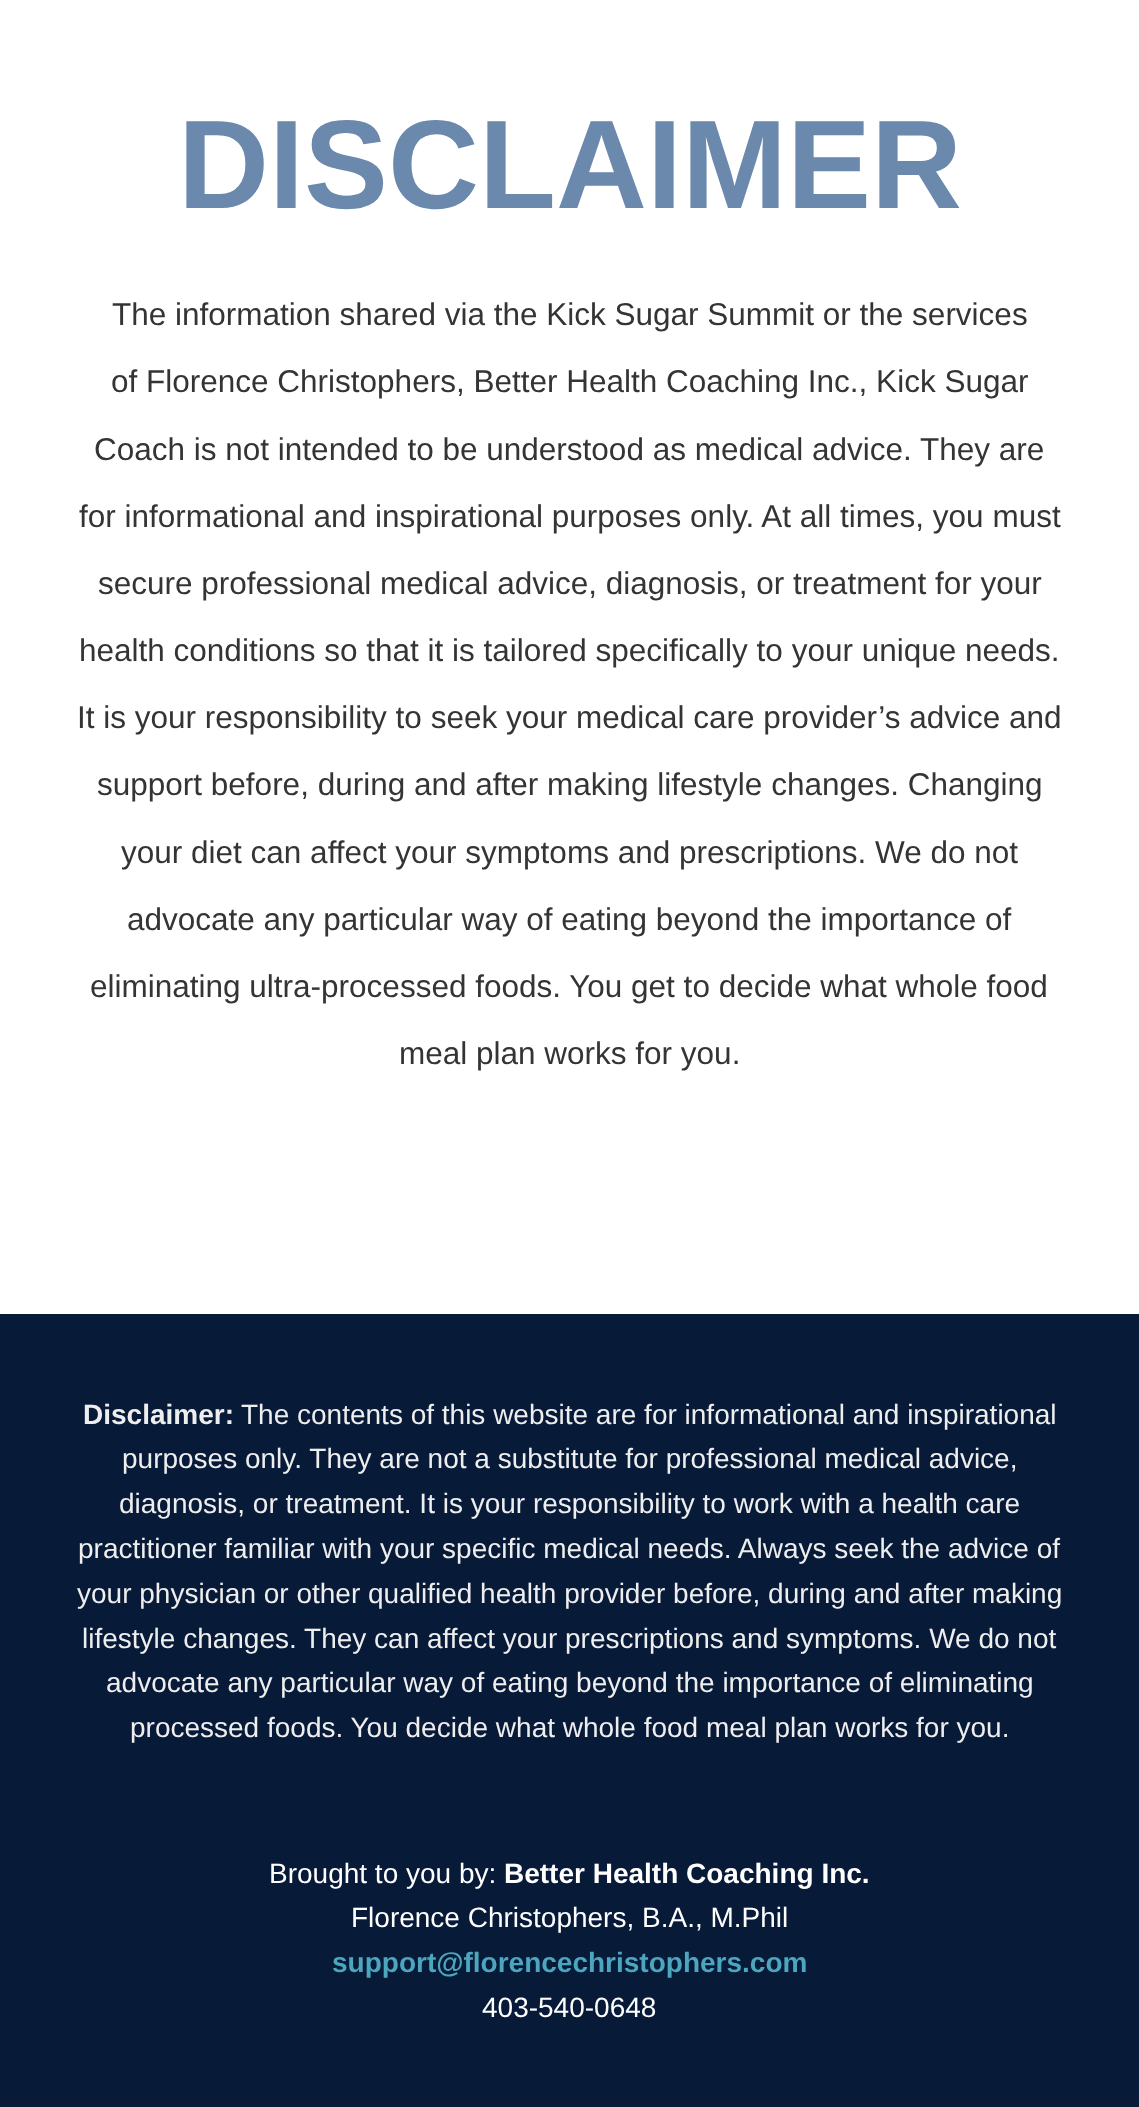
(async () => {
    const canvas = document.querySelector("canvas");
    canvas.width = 1139;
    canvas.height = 2107;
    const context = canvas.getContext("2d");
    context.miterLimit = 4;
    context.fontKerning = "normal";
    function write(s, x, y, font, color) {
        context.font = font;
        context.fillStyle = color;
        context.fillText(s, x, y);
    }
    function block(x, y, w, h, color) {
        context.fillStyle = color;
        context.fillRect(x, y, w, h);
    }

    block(0, 0, 1139, 2107, "rgb(255, 255, 255)");
    write("DISCLAIMER", 178, 208, "bold 126px Liberation Sans", "rgb(107, 136, 173)");
    write("The information shared via the Kick Sugar Summit or the services", 112, 325, "31.5px Liberation Sans", "rgb(52, 52, 52)");
    write("of Florence Christophers, Better Health Coaching Inc., Kick Sugar", 111, 392, "31.5px Liberation Sans", "rgb(52, 52, 52)");
    write("Coach is not intended to be understood as medical advice. They are", 94, 460, "31.5px Liberation Sans", "rgb(52, 52, 52)");
    write("for informational and inspirational purposes only. At all times, you must", 79, 527, "31.5px Liberation Sans", "rgb(52, 52, 52)");
    write("secure professional medical advice, diagnosis, or treatment for your", 98, 594, "31.5px Liberation Sans", "rgb(52, 52, 52)");
    write("health conditions so that it is tailored specifically to your unique needs.", 79, 661, "31.5px Liberation Sans", "rgb(52, 52, 52)");
    write("It is your responsibility to seek your medical care provider’s advice and", 77, 728, "31.5px Liberation Sans", "rgb(52, 52, 52)");
    write("support before, during and after making lifestyle changes. Changing", 97, 795, "31.5px Liberation Sans", "rgb(52, 52, 52)");
    write("your diet can affect your symptoms and prescriptions. We do not", 121, 863, "31.5px Liberation Sans", "rgb(52, 52, 52)");
    write("advocate any particular way of eating beyond the importance of", 127, 930, "31.5px Liberation Sans", "rgb(52, 52, 52)");
    write("eliminating ultra-processed foods. You get to decide what whole food", 90, 997, "31.5px Liberation Sans", "rgb(52, 52, 52)");
    write("meal plan works for you.", 399, 1064, "31.5px Liberation Sans", "rgb(52, 52, 52)");
    block(0, 1314, 1139, 793, "rgb(7, 26, 56)");
    write("Disclaimer:", 83, 1424, "bold 28px Liberation Sans", "rgb(238, 238, 238)");
    write("The contents of this website are for informational and inspirational", 241, 1424, "28px Liberation Sans", "rgb(238, 238, 238)");
    write("purposes only. They are not a substitute for professional medical advice,", 122, 1468, "28px Liberation Sans", "rgb(238, 238, 238)");
    write("diagnosis, or treatment. It is your responsibility to work with a health care", 119, 1513, "28px Liberation Sans", "rgb(238, 238, 238)");
    write("practitioner familiar with your specific medical needs. Always seek the advice of", 78, 1558, "28px Liberation Sans", "rgb(238, 238, 238)");
    write("your physician or other qualified health provider before, during and after making", 77, 1603, "28px Liberation Sans", "rgb(238, 238, 238)");
    write("lifestyle changes. They can affect your prescriptions and symptoms. We do not", 82, 1648, "28px Liberation Sans", "rgb(238, 238, 238)");
    write("advocate any particular way of eating beyond the importance of eliminating", 106, 1692, "28px Liberation Sans", "rgb(238, 238, 238)");
    write("processed foods. You decide what whole food meal plan works for you.", 130, 1737, "28px Liberation Sans", "rgb(238, 238, 238)");
    write("Brought to you by:", 269, 1883, "28px Liberation Sans", "rgb(255, 255, 255)");
    write("Better Health Coaching Inc.", 504, 1883, "bold 28px Liberation Sans", "rgb(255, 255, 255)");
    write("Florence Christophers, B.A., M.Phil", 351, 1927, "28px Liberation Sans", "rgb(255, 255, 255)");
    write("support@florencechristophers.com", 332, 1972, "bold 28px Liberation Sans", "rgb(75, 166, 190)");
    write("403-540-0648", 482, 2017, "28px Liberation Sans", "rgb(255, 255, 255)");
})();
